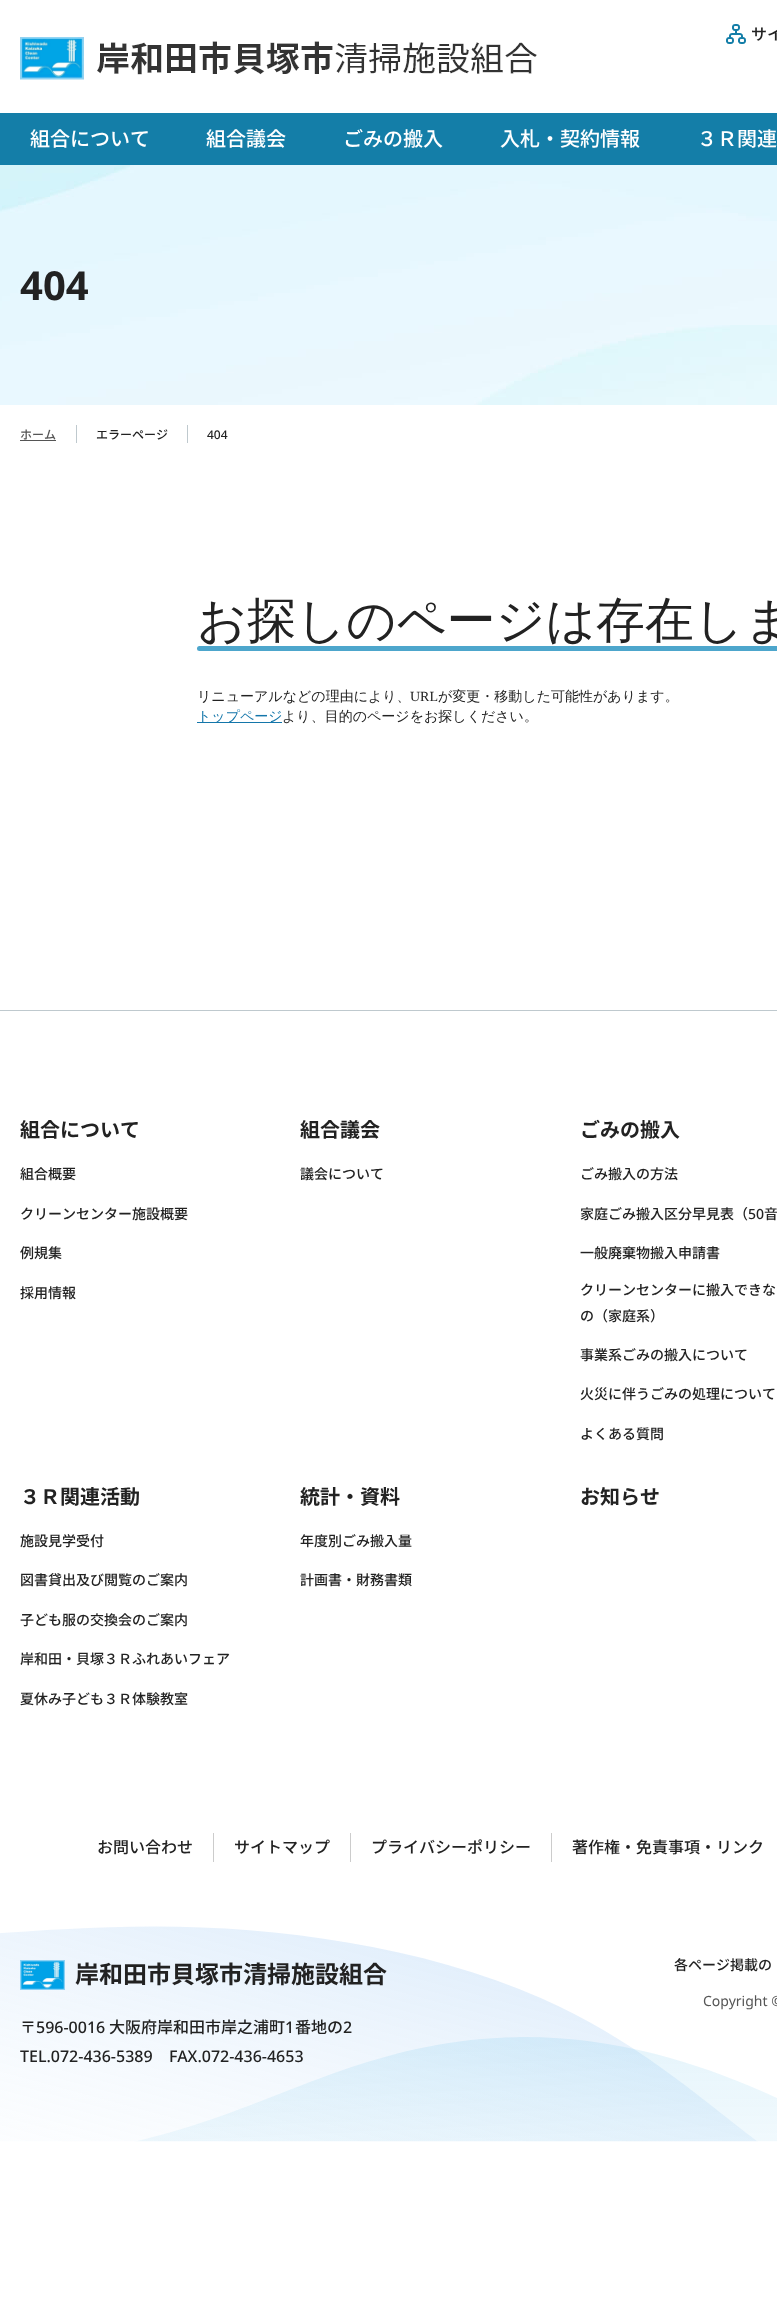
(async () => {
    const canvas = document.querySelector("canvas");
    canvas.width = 777;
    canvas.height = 2306;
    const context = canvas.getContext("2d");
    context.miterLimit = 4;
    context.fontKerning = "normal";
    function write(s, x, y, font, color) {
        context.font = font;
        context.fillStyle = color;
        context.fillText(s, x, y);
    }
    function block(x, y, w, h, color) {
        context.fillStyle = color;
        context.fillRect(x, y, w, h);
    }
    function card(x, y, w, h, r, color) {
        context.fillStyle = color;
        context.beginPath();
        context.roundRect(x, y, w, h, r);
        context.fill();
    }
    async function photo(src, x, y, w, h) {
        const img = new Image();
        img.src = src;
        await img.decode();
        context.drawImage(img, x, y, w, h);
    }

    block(0, 0, 777, 2306, "rgb(255, 255, 255)");
    await photo("media/1.png", 726, 24, 20, 20);
    write("サイ", 751, 40, "500 16px Noto Sans JP", "rgb(34, 34, 34)");
    await photo("media/2.png", 20, 37, 517, 43);
    block(0, 113, 777, 52, "rgb(20, 126, 168)");
    write("組合について", 30, 146, "500 20px Noto Sans JP", "rgb(255, 255, 255)");
    write("組合議会", 206, 146, "500 20px Noto Sans JP", "rgb(255, 255, 255)");
    write("ごみの搬入", 343, 146, "500 20px Noto Sans JP", "rgb(255, 255, 255)");
    write("入札・契約情報", 500, 146, "500 20px Noto Sans JP", "rgb(255, 255, 255)");
    write("３Ｒ関連", 697, 146, "500 20px Noto Sans JP", "rgb(255, 255, 255)");
    await photo("media/3.png", 0, 165, 777, 240);
    write("404", 20, 300, "bold 40px Noto Sans", "rgb(34, 34, 34)");
    write("ホーム", 20, 439, "500 12px Noto Sans JP", "rgb(85, 85, 85)");
    block(20, 440, 36, 1, "rgb(85, 85, 85)");
    block(76, 425, 1, 18, "rgb(191, 201, 206)");
    write("エラーページ", 96, 439, "500 12px Noto Sans JP", "rgb(34, 34, 34)");
    block(187, 425, 1, 18, "rgb(191, 201, 206)");
    write("404", 207, 439, "500 12px Noto Sans", "rgb(34, 34, 34)");
    write("お探しのページは存在しま", 197, 637, "500 49px WenQuanYi Zen Hei", "rgb(34, 34, 34)");
    card(197, 646, 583, 5, 2.5, "rgb(77, 166, 204)");
    write("リニューアルなどの理由により、", 197, 701, "500 14px WenQuanYi Zen Hei", "rgb(34, 34, 34)");
    write("URL", 410, 701, "14px Liberation Serif", "rgb(34, 34, 34)");
    write("が変更・移動した可能性があります。", 438, 701, "500 14px WenQuanYi Zen Hei", "rgb(34, 34, 34)");
    block(197, 722, 85, 1, "rgb(20, 118, 170)");
    write("トップページ", 197, 721, "500 14px WenQuanYi Zen Hei", "rgb(20, 118, 170)");
    write("より、目的のページをお探しください。", 282, 721, "500 14px WenQuanYi Zen Hei", "rgb(34, 34, 34)");
    await photo("media/4.png", 0, 1926, 777, 216);
    block(0, 1010, 777, 1, "rgb(191, 201, 206)");
    write("組合について", 20, 1137, "bold 20px Noto Sans JP", "rgb(34, 34, 34)");
    write("組合概要", 20, 1179, "500 14px Noto Sans JP", "rgb(34, 34, 34)");
    write("クリーンセンター施設概要", 20, 1219, "500 14px Noto Sans JP", "rgb(34, 34, 34)");
    write("例規集", 20, 1258, "500 14px Noto Sans JP", "rgb(34, 34, 34)");
    write("採用情報", 20, 1298, "500 14px Noto Sans JP", "rgb(34, 34, 34)");
    write("組合議会", 300, 1137, "bold 20px Noto Sans JP", "rgb(34, 34, 34)");
    write("議会について", 300, 1179, "500 14px Noto Sans JP", "rgb(34, 34, 34)");
    write("ごみの搬入", 580, 1137, "bold 20px Noto Sans JP", "rgb(34, 34, 34)");
    write("ごみ搬入の方法", 580, 1179, "500 14px Noto Sans JP", "rgb(34, 34, 34)");
    write("家庭ごみ搬入区分早見表（", 580, 1219, "500 14px Noto Sans JP", "rgb(34, 34, 34)");
    write("50", 748, 1219, "500 14px Noto Sans", "rgb(34, 34, 34)");
    write("音", 764, 1219, "500 14px Noto Sans JP", "rgb(34, 34, 34)");
    write("一般廃棄物搬入申請書", 580, 1258, "500 14px Noto Sans JP", "rgb(34, 34, 34)");
    write("クリーンセンターに搬入できな", 580, 1295, "500 14px Noto Sans JP", "rgb(34, 34, 34)");
    write("の（家庭系）", 580, 1321, "500 14px Noto Sans JP", "rgb(34, 34, 34)");
    write("事業系ごみの搬入について", 580, 1360, "500 14px Noto Sans JP", "rgb(34, 34, 34)");
    write("火災に伴うごみの処理について", 580, 1399, "500 14px Noto Sans JP", "rgb(34, 34, 34)");
    write("よくある質問", 580, 1439, "500 14px Noto Sans JP", "rgb(34, 34, 34)");
    write("３Ｒ関連活動", 20, 1504, "bold 20px Noto Sans JP", "rgb(34, 34, 34)");
    write("施設見学受付", 20, 1546, "500 14px Noto Sans JP", "rgb(34, 34, 34)");
    write("図書貸出及び閲覧のご案内", 20, 1585, "500 14px Noto Sans JP", "rgb(34, 34, 34)");
    write("子ども服の交換会のご案内", 20, 1625, "500 14px Noto Sans JP", "rgb(34, 34, 34)");
    write("岸和田・貝塚３Ｒふれあいフェア", 20, 1664, "500 14px Noto Sans JP", "rgb(34, 34, 34)");
    write("夏休み子ども３Ｒ体験教室", 20, 1704, "500 14px Noto Sans JP", "rgb(34, 34, 34)");
    write("統計・資料", 300, 1504, "bold 20px Noto Sans JP", "rgb(34, 34, 34)");
    write("年度別ごみ搬入量", 300, 1546, "500 14px Noto Sans JP", "rgb(34, 34, 34)");
    write("計画書・財務書類", 300, 1585, "500 14px Noto Sans JP", "rgb(34, 34, 34)");
    write("お知らせ", 580, 1504, "bold 20px Noto Sans JP", "rgb(34, 34, 34)");
    block(213, 1833, 1, 29, "rgb(204, 204, 204)");
    write("お問い合わせ", 97, 1853, "500 16px Noto Sans JP", "rgb(34, 34, 34)");
    block(350, 1833, 1, 29, "rgb(204, 204, 204)");
    write("サイトマップ", 234, 1853, "500 16px Noto Sans JP", "rgb(34, 34, 34)");
    block(551, 1833, 1, 29, "rgb(204, 204, 204)");
    write("プライバシーポリシー", 371, 1853, "500 16px Noto Sans JP", "rgb(34, 34, 34)");
    write("著作権・免責事項・リンク", 572, 1853, "500 16px Noto Sans JP", "rgb(34, 34, 34)");
    await photo("media/5.png", 20, 1960, 45, 30);
    write("岸和田市貝塚市清掃施設組合", 75, 1983, "bold 24px Noto Sans JP", "rgb(34, 34, 34)");
    write("〒", 20, 2033, "500 16px Noto Sans JP", "rgb(34, 34, 34)");
    write("596-0016", 36, 2033, "500 16px Noto Sans", "rgb(34, 34, 34)");
    write("大阪府岸和田市岸之浦町", 109, 2033, "500 16px Noto Sans JP", "rgb(34, 34, 34)");
    write("1", 285, 2033, "500 16px Noto Sans", "rgb(34, 34, 34)");
    write("番地の", 295, 2033, "500 16px Noto Sans JP", "rgb(34, 34, 34)");
    write("2", 343, 2033, "500 16px Noto Sans", "rgb(34, 34, 34)");
    write("TEL.072-436-5389", 20, 2062, "500 16px Noto Sans", "rgb(34, 34, 34)");
    write("FAX.072-436-4653", 169, 2062, "500 16px Noto Sans", "rgb(34, 34, 34)");
    write("各ページ掲載の", 674, 1970, "500 14px Noto Sans JP", "rgb(34, 34, 34)");
    write("Copyright ©", 703, 2006, "14px Noto Sans", "rgb(85, 85, 85)");
})();
